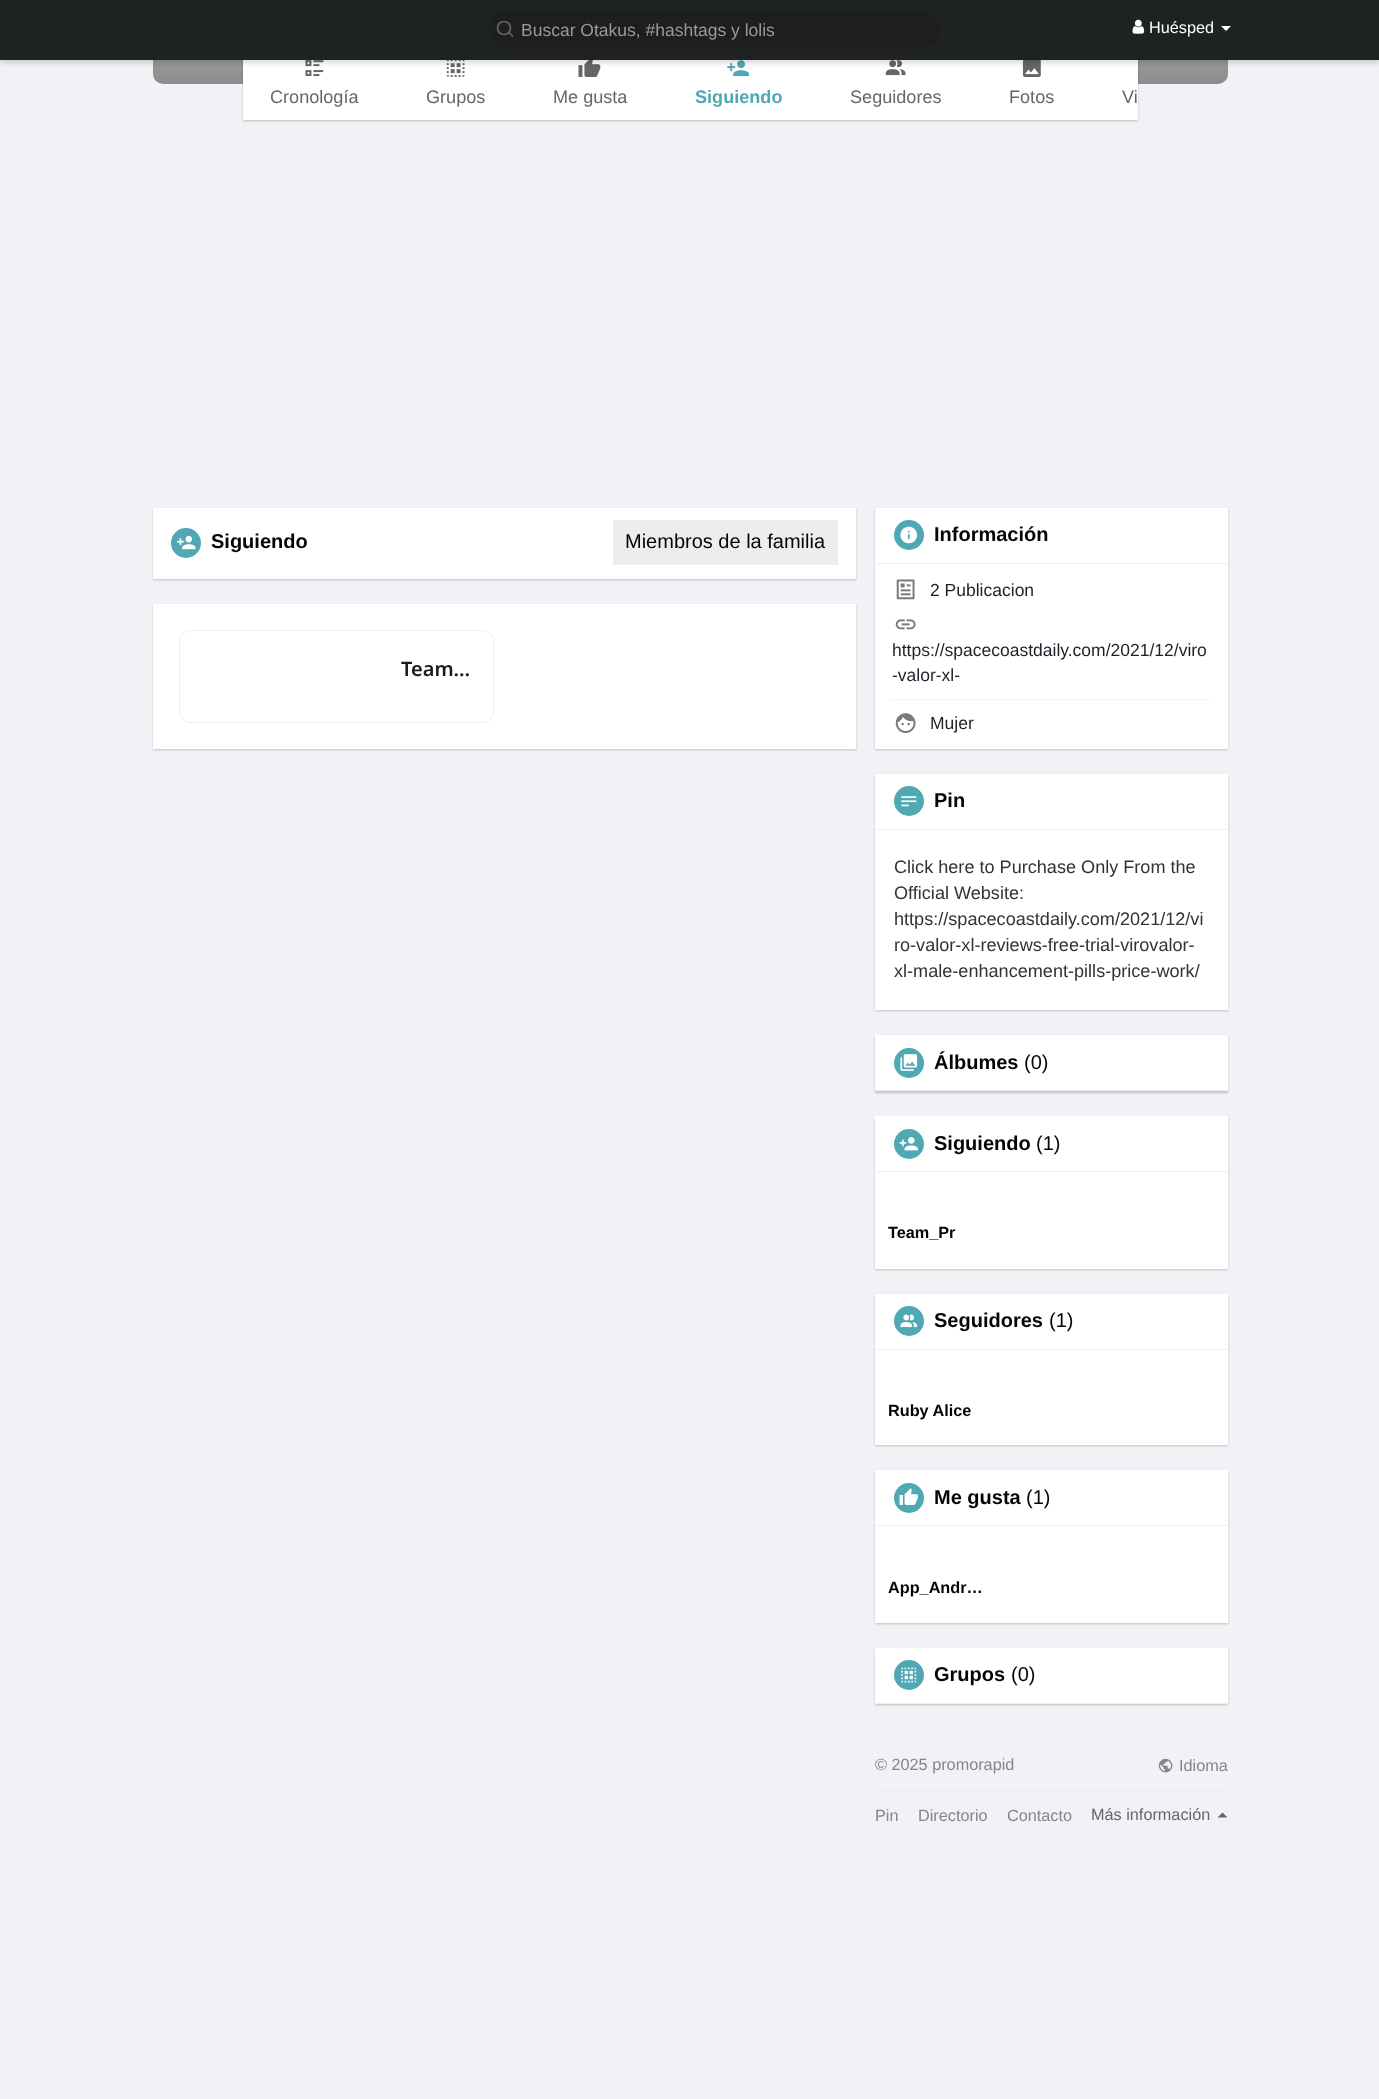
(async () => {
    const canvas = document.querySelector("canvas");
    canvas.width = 1379;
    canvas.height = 2099;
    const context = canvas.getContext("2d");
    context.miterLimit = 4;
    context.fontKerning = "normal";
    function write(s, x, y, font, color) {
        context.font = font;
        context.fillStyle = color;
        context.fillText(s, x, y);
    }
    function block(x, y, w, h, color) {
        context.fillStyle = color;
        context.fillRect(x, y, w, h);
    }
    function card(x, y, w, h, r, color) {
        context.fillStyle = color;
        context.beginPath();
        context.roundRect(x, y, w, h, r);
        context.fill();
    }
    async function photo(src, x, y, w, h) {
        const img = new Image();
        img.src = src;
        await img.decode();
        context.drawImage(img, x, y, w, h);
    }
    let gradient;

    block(0, 0, 1379, 2099, "rgb(240, 242, 245)");
    context.fillStyle = "rgb(255, 255, 255)";
    context.beginPath();
    context.roundRect(153, 56, 1075, 28, [0, 0, 10, 10]);
    context.fill();
    gradient = context.createLinearGradient(690, -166, 690, 84);
    gradient.addColorStop(0, "rgba(0, 0, 0, 0)");
    gradient.addColorStop(1, "rgba(0, 0, 0, 0.45)");
    context.fillStyle = gradient;
    context.beginPath();
    context.roundRect(153, -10, 1075, 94, 10);
    context.fill();
    context.fillStyle = "rgba(0, 0, 0, 0.2)";
    context.filter = "blur(1px)";
    context.beginPath();
    context.rect(243, 44, 895, 77);
    context.fill();
    context.filter = "none";
    block(243, 60, 895, 60, "rgb(255, 255, 255)");
    await photo("media/2.png", 305, 60, 19, 17);
    await photo("media/3.png", 446, 60, 19, 17);
    await photo("media/4.png", 578, 60, 23, 17);
    await photo("media/5.png", 727, 60, 22, 17);
    await photo("media/6.png", 885, 60, 21, 16);
    await photo("media/7.png", 1022, 60, 19, 17);
    context.fillStyle = "rgba(0, 0, 0, 0.15)";
    context.filter = "blur(2.5px)";
    context.beginPath();
    context.rect(0, 3, 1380, 60);
    context.fill();
    context.filter = "none";
    block(0, 0, 1379, 60, "rgb(30, 35, 33)");
    card(489, 11, 450, 38, 19, "rgb(30, 30, 31)");
    context.beginPath();
    context.arc(504, 28, 6.5, 0, Math.PI * 2);
    context.strokeStyle = "rgb(102, 102, 102)";
    context.lineWidth = 1.7;
    context.stroke();
    context.beginPath();
    context.moveTo(512.5, 36);
    context.lineTo(509, 32.5);
    context.lineCap = "round";
    context.lineJoin = "round";
    context.stroke();
    write("Buscar Otakus, #hashtags y lolis", 521, 36, "17.5px Liberation Sans", "rgb(153, 153, 153)");
    await photo("media/1.png", 1132, 19, 13, 15);
    write("Huésped", 1149, 33, "16.25px Liberation Sans", "rgb(255, 255, 255)");
    context.beginPath();
    context.moveTo(1221, 26);
    context.lineTo(1231, 26);
    context.lineTo(1226, 31);
    context.closePath();
    context.fill();
    write("Cronología", 270, 103, "18.1px Liberation Sans", "rgb(102, 102, 102)");
    write("Grupos", 426, 103, "18.1px Liberation Sans", "rgb(102, 102, 102)");
    write("Me gusta", 553, 103, "18.1px Liberation Sans", "rgb(102, 102, 102)");
    write("Siguiendo", 695, 103, "bold 18.1px Liberation Sans", "rgb(80, 168, 179)");
    write("Seguidores", 850, 103, "18.1px Liberation Sans", "rgb(102, 102, 102)");
    write("Fotos", 1009, 103, "18.1px Liberation Sans", "rgb(102, 102, 102)");
    write("Vi", 1122, 103, "18.1px Liberation Sans", "rgb(102, 102, 102)");
    context.fillStyle = "rgba(0, 0, 0, 0.2)";
    context.filter = "blur(1px)";
    context.beginPath();
    context.rect(153, 509, 703, 71);
    context.fill();
    context.filter = "none";
    block(153, 508, 703, 71, "rgb(255, 255, 255)");
    context.fillStyle = "rgb(80, 168, 179)";
    context.beginPath();
    context.arc(186, 543, 15, 0, Math.PI * 2);
    context.fill();
    await photo("media/8.png", 177, 535, 19, 15);
    write("Siguiendo", 211, 548, "bold 20px Liberation Sans", "rgb(5, 5, 5)");
    block(613, 520, 225, 45, "rgb(237, 237, 237)");
    write("Miembros de la familia", 625, 548, "20px Liberation Sans", "rgb(5, 5, 5)");
    context.fillStyle = "rgba(0, 0, 0, 0.2)";
    context.filter = "blur(1px)";
    context.beginPath();
    context.rect(153, 605, 703, 145);
    context.fill();
    context.filter = "none";
    block(153, 604, 703, 145, "rgb(255, 255, 255)");
    context.beginPath();
    context.roundRect(179.5, 630.5, 314, 92, 10.5);
    context.strokeStyle = "rgb(237, 237, 237)";
    context.lineWidth = 1;
    context.lineJoin = "miter";
    context.stroke();
    card(180, 631, 313, 90, 10, "rgb(255, 255, 255)");
    write("Team…", 401, 676, "600 20px Noto Sans", "rgb(26, 26, 26)");
    context.fillStyle = "rgba(0, 0, 0, 0.2)";
    context.filter = "blur(1px)";
    context.beginPath();
    context.rect(875, 509, 353, 241);
    context.fill();
    context.filter = "none";
    block(875, 508, 353, 241, "rgb(255, 255, 255)");
    block(875, 563, 353, 1, "rgb(238, 238, 238)");
    context.fillStyle = "rgb(80, 168, 179)";
    context.beginPath();
    context.arc(909, 535, 15, 0, Math.PI * 2);
    context.fill();
    await photo("media/9.png", 900, 526, 18, 18);
    write("Información", 934, 541, "bold 20px Liberation Sans", "rgb(5, 5, 5)");
    await photo("media/10.png", 896, 579, 19, 21);
    write("2 Publicacion", 930, 596, "17.5px Liberation Sans", "rgb(29, 33, 41)");
    await photo("media/11.png", 895, 619, 21, 11);
    write("https://spacecoastdaily.com/2021/12/viro", 892, 656, "17.5px Liberation Sans", "rgb(29, 33, 41)");
    write("-valor-xl-", 892, 681, "17.5px Liberation Sans", "rgb(29, 33, 41)");
    block(891, 699, 320, 1, "rgb(244, 244, 244)");
    await photo("media/12.png", 895, 713, 21, 20);
    write("Mujer", 930, 729, "17.5px Liberation Sans", "rgb(29, 33, 41)");
    context.fillStyle = "rgba(0, 0, 0, 0.2)";
    context.filter = "blur(1px)";
    context.beginPath();
    context.rect(875, 775, 353, 236);
    context.fill();
    context.filter = "none";
    block(875, 774, 353, 236, "rgb(255, 255, 255)");
    block(875, 829, 353, 1, "rgb(238, 238, 238)");
    context.fillStyle = "rgb(80, 168, 179)";
    context.beginPath();
    context.arc(909, 801, 15, 0, Math.PI * 2);
    context.fill();
    await photo("media/13.png", 901, 796, 16, 11);
    write("Pin", 934, 807, "bold 20px Liberation Sans", "rgb(5, 5, 5)");
    write("Click here to Purchase Only From the", 894, 873, "18.1px Liberation Sans", "rgb(51, 51, 51)");
    write("Official Website:", 894, 899, "18.1px Liberation Sans", "rgb(51, 51, 51)");
    write("https://spacecoastdaily.com/2021/12/vi", 894, 925, "18.1px Liberation Sans", "rgb(51, 51, 51)");
    write("ro-valor-xl-reviews-free-trial-virovalor-", 894, 951, "18.1px Liberation Sans", "rgb(51, 51, 51)");
    write("xl-male-enhancement-pills-price-work/", 894, 977, "18.1px Liberation Sans", "rgb(51, 51, 51)");
    context.fillStyle = "rgba(0, 0, 0, 0.2)";
    context.filter = "blur(1px)";
    context.beginPath();
    context.rect(875, 1036, 353, 57);
    context.fill();
    context.filter = "none";
    block(875, 1035, 353, 55, "rgb(255, 255, 255)");
    block(875, 1090, 353, 1, "rgb(238, 238, 238)");
    context.fillStyle = "rgb(80, 168, 179)";
    context.beginPath();
    context.arc(909, 1063, 15, 0, Math.PI * 2);
    context.fill();
    await photo("media/14.png", 900, 1054, 18, 17);
    write("Álbumes", 934, 1069, "bold 20px Liberation Sans", "rgb(5, 5, 5)");
    write("(0)", 1024, 1069, "20px Liberation Sans", "rgb(5, 5, 5)");
    context.fillStyle = "rgba(0, 0, 0, 0.2)";
    context.filter = "blur(1px)";
    context.beginPath();
    context.rect(875, 1118, 353, 152);
    context.fill();
    context.filter = "none";
    block(875, 1116, 353, 153, "rgb(255, 255, 255)");
    block(875, 1171, 353, 1, "rgb(238, 238, 238)");
    context.fillStyle = "rgb(80, 168, 179)";
    context.beginPath();
    context.arc(909, 1144, 15, 0, Math.PI * 2);
    context.fill();
    await photo("media/15.png", 899, 1137, 19, 14);
    write("Siguiendo", 934, 1150, "bold 20px Liberation Sans", "rgb(5, 5, 5)");
    write("(1)", 1036, 1150, "20px Liberation Sans", "rgb(5, 5, 5)");
    write("Team_Pr", 888, 1238, "bold 16.25px Liberation Sans", "rgb(5, 5, 5)");
    context.fillStyle = "rgba(0, 0, 0, 0.2)";
    context.filter = "blur(1px)";
    context.beginPath();
    context.rect(875, 1295, 353, 151);
    context.fill();
    context.filter = "none";
    block(875, 1294, 353, 151, "rgb(255, 255, 255)");
    block(875, 1349, 353, 1, "rgb(238, 238, 238)");
    context.fillStyle = "rgb(80, 168, 179)";
    context.beginPath();
    context.arc(909, 1321, 15, 0, Math.PI * 2);
    context.fill();
    await photo("media/16.png", 900, 1314, 18, 14);
    write("Seguidores", 934, 1327, "bold 20px Liberation Sans", "rgb(5, 5, 5)");
    write("(1)", 1049, 1327, "20px Liberation Sans", "rgb(5, 5, 5)");
    write("Ruby Alice", 888, 1416, "bold 16.25px Liberation Sans", "rgb(5, 5, 5)");
    context.fillStyle = "rgba(0, 0, 0, 0.2)";
    context.filter = "blur(1px)";
    context.beginPath();
    context.rect(875, 1471, 353, 153);
    context.fill();
    context.filter = "none";
    block(875, 1470, 353, 153, "rgb(255, 255, 255)");
    block(875, 1525, 353, 1, "rgb(238, 238, 238)");
    context.fillStyle = "rgb(80, 168, 179)";
    context.beginPath();
    context.arc(909, 1498, 15, 0, Math.PI * 2);
    context.fill();
    await photo("media/17.png", 899, 1488, 19, 17);
    write("Me gusta", 934, 1504, "bold 20px Liberation Sans", "rgb(5, 5, 5)");
    write("(1)", 1026, 1504, "20px Liberation Sans", "rgb(5, 5, 5)");
    write("App_Andr…", 888, 1593, "bold 16.25px Liberation Sans", "rgb(5, 5, 5)");
    context.fillStyle = "rgba(0, 0, 0, 0.2)";
    context.filter = "blur(1px)";
    context.beginPath();
    context.rect(875, 1649, 353, 56);
    context.fill();
    context.filter = "none";
    block(875, 1648, 353, 55, "rgb(255, 255, 255)");
    block(875, 1703, 353, 1, "rgb(238, 238, 238)");
    context.fillStyle = "rgb(80, 168, 179)";
    context.beginPath();
    context.arc(909, 1675, 15, 0, Math.PI * 2);
    context.fill();
    await photo("media/18.png", 901, 1667, 16, 16);
    write("Grupos", 934, 1681, "bold 20px Liberation Sans", "rgb(5, 5, 5)");
    write("(0)", 1011, 1681, "20px Liberation Sans", "rgb(5, 5, 5)");
    write("© 2025 promorapid", 875, 1770, "16.25px Liberation Sans", "rgb(133, 133, 133)");
    await photo("media/19.png", 1158, 1758, 15, 15);
    write("Idioma", 1179, 1771, "16.25px Liberation Sans", "rgb(133, 133, 133)");
    block(875, 1790, 353, 1, "rgb(233, 233, 233)");
    write("Pin", 875, 1821, "16.25px Liberation Sans", "rgb(133, 133, 133)");
    write("Directorio", 918, 1821, "16.25px Liberation Sans", "rgb(133, 133, 133)");
    write("Contacto", 1007, 1821, "16.25px Liberation Sans", "rgb(133, 133, 133)");
    write("Más información", 1091, 1820, "16.25px Liberation Sans", "rgb(102, 102, 102)");
    context.beginPath();
    context.moveTo(1227.5, 1817.5);
    context.lineTo(1217.5, 1817.5);
    context.lineTo(1222.5, 1812.5);
    context.closePath();
    context.fill();
})();
